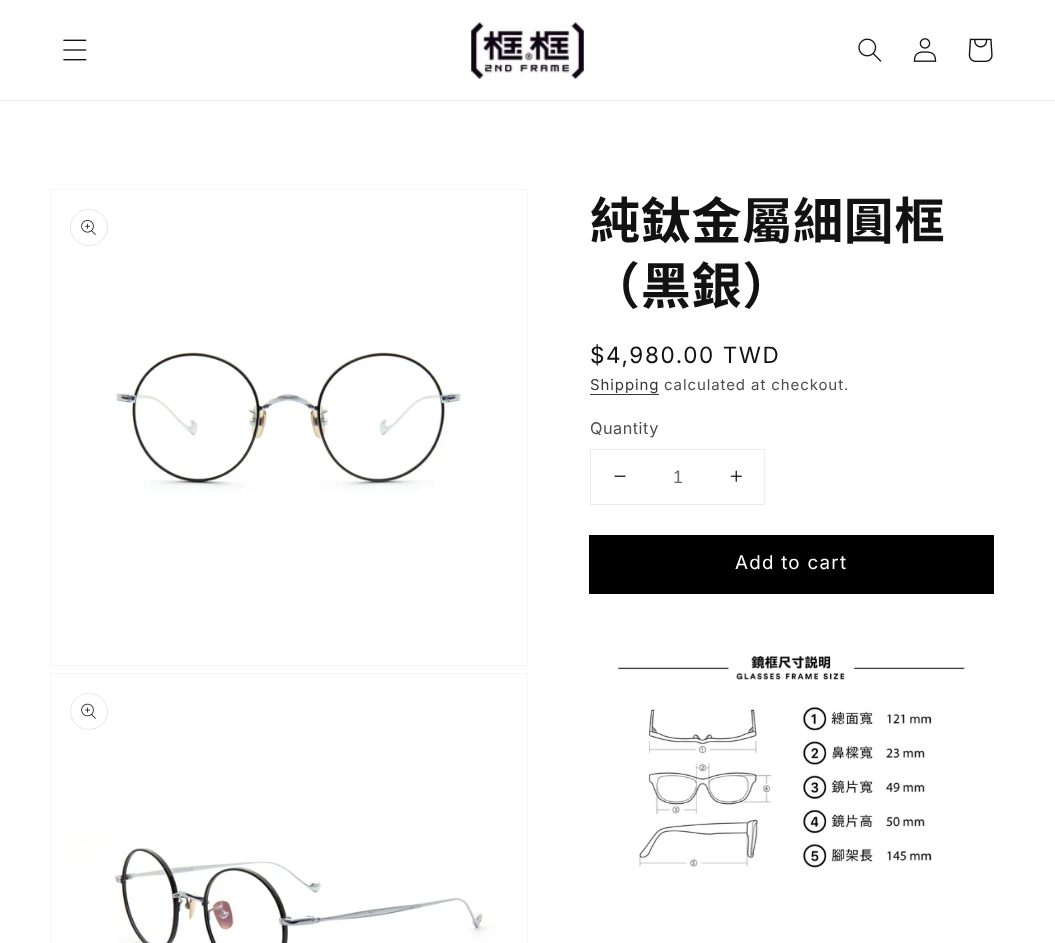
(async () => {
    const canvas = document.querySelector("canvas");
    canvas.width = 1055;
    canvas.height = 943;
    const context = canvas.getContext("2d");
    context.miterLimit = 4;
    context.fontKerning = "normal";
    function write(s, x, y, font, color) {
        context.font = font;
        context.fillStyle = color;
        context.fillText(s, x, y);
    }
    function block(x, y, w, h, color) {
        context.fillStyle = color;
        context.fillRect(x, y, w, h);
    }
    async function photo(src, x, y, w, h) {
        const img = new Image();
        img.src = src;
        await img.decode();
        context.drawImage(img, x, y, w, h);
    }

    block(0, 0, 1055, 943, "rgb(255, 255, 255)");
    block(0, 100, 1055, 1, "rgb(236, 236, 236)");
    await photo("media/1.png", 63, 39, 24, 22);
    await photo("media/2.png", 471, 22, 113, 57);
    await photo("media/3.png", 858, 38, 24, 24);
    await photo("media/4.png", 913, 38, 24, 24);
    await photo("media/5.png", 968, 38, 25, 24);
    context.strokeStyle = "rgb(246, 246, 246)";
    context.strokeRect(50.5, 189.5, 477, 476);
    context.beginPath();
    context.roundRect(70.5, 209.5, 37, 36, 18);
    context.strokeStyle = "rgb(231, 231, 231)";
    context.stroke();
    await photo("media/6.png", 81, 220, 15, 15);
    await photo("media/7.png", 115, 348, 346, 145);
    context.strokeStyle = "rgb(246, 246, 246)";
    context.strokeRect(50.5, 673.5, 477, 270);
    context.beginPath();
    context.roundRect(70.5, 693.5, 37, 36, 18);
    context.strokeStyle = "rgb(231, 231, 231)";
    context.stroke();
    await photo("media/8.png", 81, 703, 15, 16);
    await photo("media/9.png", 64, 832, 430, 111);
    context.letterSpacing = "0.75px";
    write("純鈦金屬細圓框", 590, 239, "bold 50px Noto Sans TC", "rgb(18, 18, 18)");
    write("（黑銀）", 590, 304, "bold 50px Noto Sans TC", "rgb(18, 18, 18)");
    context.letterSpacing = "1.6px";
    write("$4,980.00 TWD", 590, 363, "22.5px Inter", "rgb(18, 18, 18)");
    context.letterSpacing = "0.9px";
    write("Shipping", 590, 390, "15px Inter", "rgb(54, 54, 54)");
    block(590, 394, 69, 1, "rgb(54, 54, 54)");
    write("calculated at checkout.", 664, 390, "15px Inter", "rgb(77, 77, 77)");
    context.letterSpacing = "0.5px";
    write("Quantity", 590, 434, "16.25px Inter", "rgb(77, 77, 77)");
    context.strokeStyle = "rgb(236, 236, 236)";
    context.strokeRect(590.5, 449.5, 174, 55);
    await photo("media/10.png", 614, 475, 12, 2);
    context.letterSpacing = "0px";
    write("1", 673, 483, "18px Liberation Sans", "rgb(104, 104, 104)");
    await photo("media/11.png", 730, 470, 12, 12);
    context.strokeStyle = "rgb(0, 0, 0)";
    context.strokeRect(589.5, 535.5, 404, 58);
    block(590, 536, 403, 57, "rgb(0, 0, 0)");
    context.letterSpacing = "1.25px";
    write("Add to cart", 735, 569, "18.75px Inter", "rgb(255, 255, 255)");
    await photo("media/12.png", 618, 655, 347, 213);
})();
